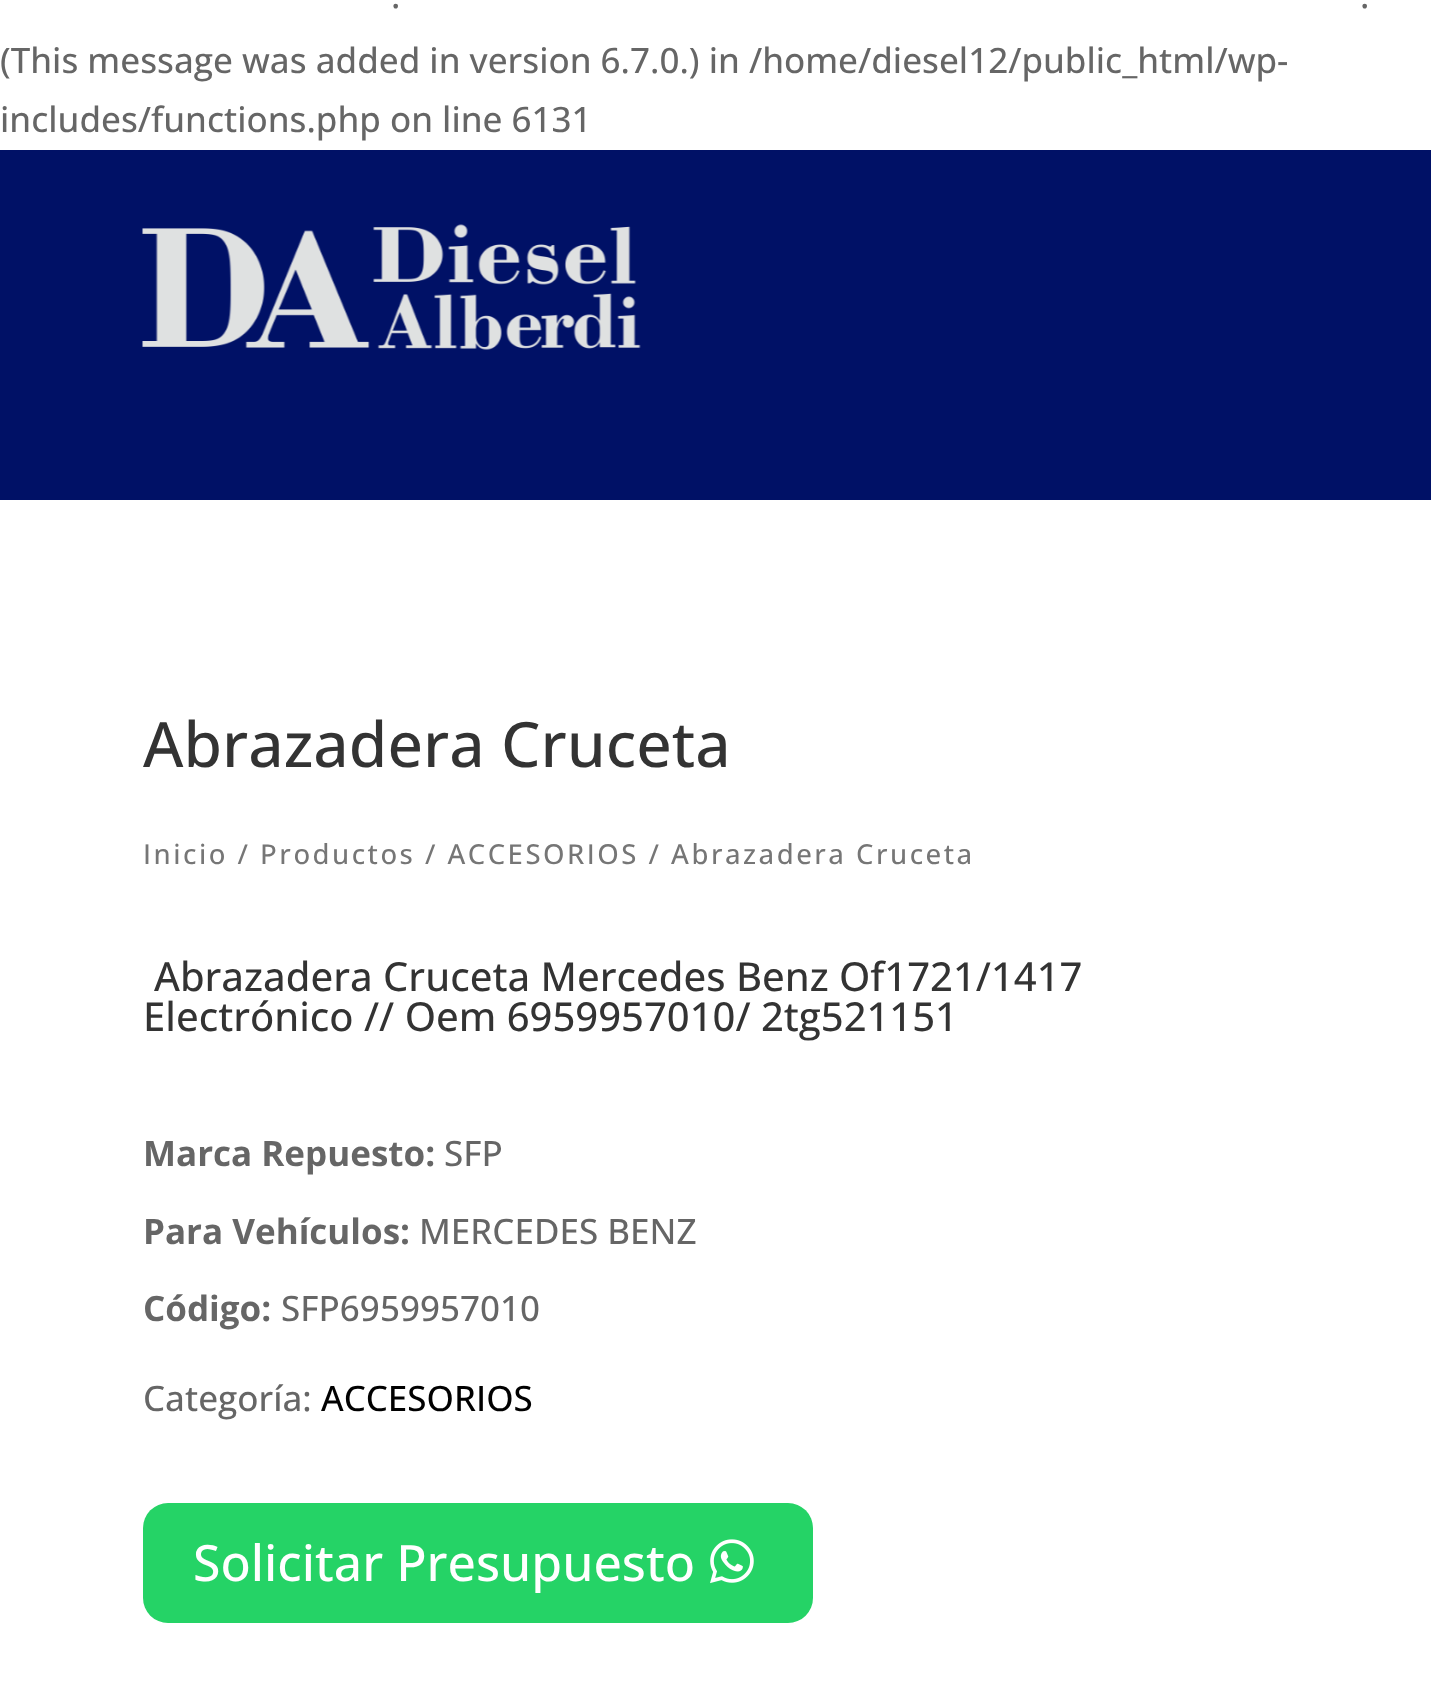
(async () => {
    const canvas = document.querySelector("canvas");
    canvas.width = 1431;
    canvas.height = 1698;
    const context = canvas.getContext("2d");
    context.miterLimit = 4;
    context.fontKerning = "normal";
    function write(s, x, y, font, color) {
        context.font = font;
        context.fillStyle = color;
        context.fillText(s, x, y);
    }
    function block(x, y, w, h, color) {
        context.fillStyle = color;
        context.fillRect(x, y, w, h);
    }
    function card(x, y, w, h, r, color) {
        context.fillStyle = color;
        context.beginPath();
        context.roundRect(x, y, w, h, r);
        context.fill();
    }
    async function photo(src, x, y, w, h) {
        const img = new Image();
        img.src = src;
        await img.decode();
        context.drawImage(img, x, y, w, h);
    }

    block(0, 0, 1431, 1698, "rgb(255, 255, 255)");
    write(".", 391, 8, "500 35px Open Sans", "rgb(102, 102, 102)");
    write(".", 1360, 8, "500 35px Open Sans", "rgb(102, 102, 102)");
    write("(This message was added in version 6.7.0.) in /home/diesel12/public_html/wp-", 0, 73, "500 35px Open Sans", "rgb(102, 102, 102)");
    write("includes/functions.php on line 6131", 0, 132, "500 35px Open Sans", "rgb(102, 102, 102)");
    block(0, 150, 1431, 350, "rgb(0, 17, 102)");
    await photo("media/1.png", 142, 224, 499, 126);
    write("Abrazadera Cruceta", 143, 767, "500 62.5px Open Sans", "rgb(51, 51, 51)");
    context.letterSpacing = "2.5px";
    write("Inicio / Productos / ACCESORIOS / Abrazadera Cruceta", 143, 864, "500 27.5px Open Sans", "rgb(118, 118, 118)");
    context.letterSpacing = "0px";
    write("Abrazadera Cruceta Mercedes Benz Of1721/1417", 154, 991, "500 40px Open Sans", "rgb(51, 51, 51)");
    write("Electrónico // Oem 6959957010/ 2tg521151", 143, 1031, "500 40px Open Sans", "rgb(51, 51, 51)");
    write("Marca Repuesto:", 143, 1166, "bold 35px Open Sans", "rgb(102, 102, 102)");
    write("SFP", 444, 1166, "500 35px Open Sans", "rgb(102, 102, 102)");
    write("Para Vehículos:", 143, 1244, "bold 35px Open Sans", "rgb(102, 102, 102)");
    write("MERCEDES BENZ", 419, 1244, "500 35px Open Sans", "rgb(102, 102, 102)");
    write("Código:", 143, 1321, "bold 35px Open Sans", "rgb(102, 102, 102)");
    write("SFP6959957010", 281, 1321, "500 35px Open Sans", "rgb(102, 102, 102)");
    write("Categoría:", 143, 1411, "500 35px Open Sans", "rgb(102, 102, 102)");
    write("ACCESORIOS", 321, 1411, "500 35px Open Sans", "rgb(0, 0, 0)");
    card(143, 1503, 670, 120, 25, "rgb(37, 211, 102)");
    write("Solicitar Presupuesto", 193, 1581, "500 50px Open Sans", "rgb(255, 255, 255)");
    await photo("media/2.png", 710, 1539, 44, 45);
})();
